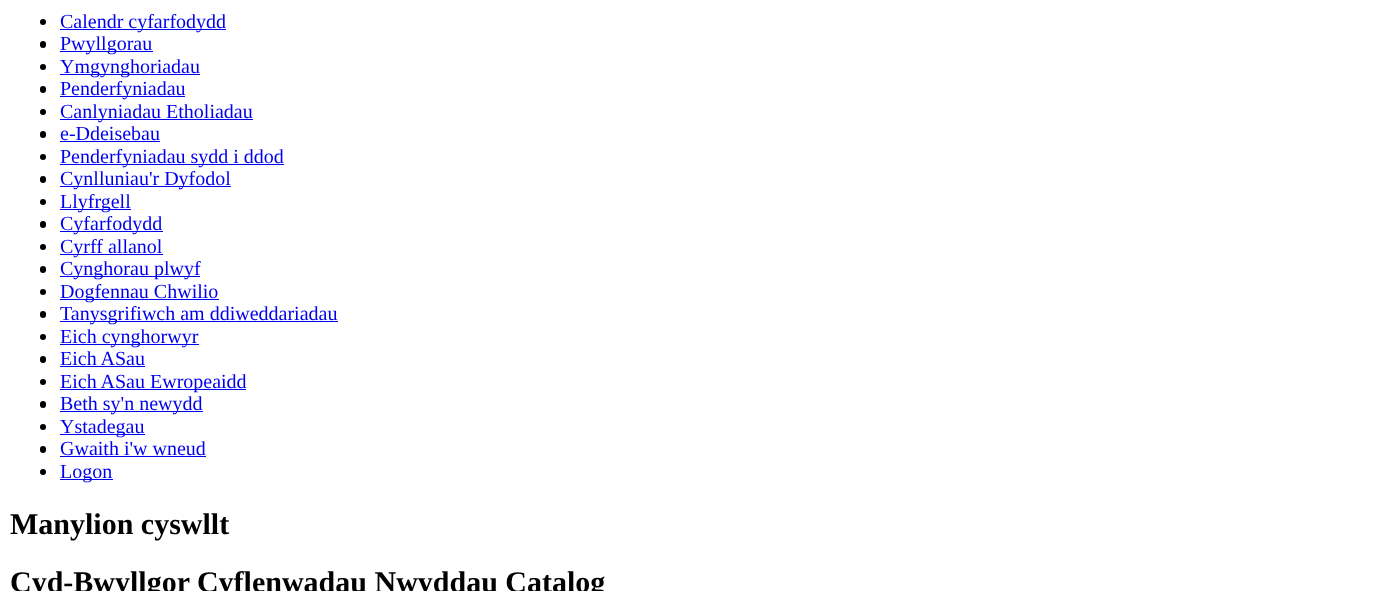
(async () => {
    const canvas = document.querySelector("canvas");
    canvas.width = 1378;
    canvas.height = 591;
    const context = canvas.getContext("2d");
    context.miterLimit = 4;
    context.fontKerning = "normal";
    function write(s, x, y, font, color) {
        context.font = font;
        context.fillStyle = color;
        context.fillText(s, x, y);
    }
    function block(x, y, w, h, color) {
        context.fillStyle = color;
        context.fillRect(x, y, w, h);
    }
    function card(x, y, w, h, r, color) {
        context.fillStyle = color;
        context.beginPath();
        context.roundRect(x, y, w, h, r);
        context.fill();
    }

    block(0, 0, 1378, 591, "rgb(255, 255, 255)");
    context.fillStyle = "rgb(0, 0, 0)";
    context.beginPath();
    context.arc(43, 22, 3, 0, Math.PI * 2);
    context.fill();
    block(60, 29, 166, 1, "rgb(0, 0, 238)");
    write("Calendr cyfarfodydd", 60, 28, "20px Liberation Serif", "rgb(0, 0, 238)");
    card(40, 41, 6, 7, 3, "rgb(0, 0, 0)");
    block(60, 51, 93, 1, "rgb(0, 0, 238)");
    write("Pwyllgorau", 60, 50, "20px Liberation Serif", "rgb(0, 0, 238)");
    context.fillStyle = "rgb(0, 0, 0)";
    context.beginPath();
    context.arc(43, 67, 3, 0, Math.PI * 2);
    context.fill();
    block(60, 74, 140, 1, "rgb(0, 0, 238)");
    write("Ymgynghoriadau", 60, 73, "20px Liberation Serif", "rgb(0, 0, 238)");
    card(40, 86, 6, 7, 3, "rgb(0, 0, 0)");
    block(60, 96, 125, 1, "rgb(0, 0, 238)");
    write("Penderfyniadau", 60, 95, "20px Liberation Serif", "rgb(0, 0, 238)");
    context.fillStyle = "rgb(0, 0, 0)";
    context.beginPath();
    context.arc(43, 112, 3, 0, Math.PI * 2);
    context.fill();
    block(60, 119, 193, 1, "rgb(0, 0, 238)");
    write("Canlyniadau Etholiadau", 60, 118, "20px Liberation Serif", "rgb(0, 0, 238)");
    card(40, 131, 6, 7, 3, "rgb(0, 0, 0)");
    write("e-Ddeisebau", 60, 140, "20px Liberation Serif", "rgb(0, 0, 238)");
    block(60, 141, 100, 1, "rgb(0, 0, 238)");
    context.fillStyle = "rgb(0, 0, 0)";
    context.beginPath();
    context.arc(43, 157, 3, 0, Math.PI * 2);
    context.fill();
    block(60, 164, 224, 1, "rgb(0, 0, 238)");
    write("Penderfyniadau sydd i ddod", 60, 163, "20px Liberation Serif", "rgb(0, 0, 238)");
    card(40, 176, 6, 7, 3, "rgb(0, 0, 0)");
    block(60, 186, 171, 1, "rgb(0, 0, 238)");
    write("Cynlluniau'r Dyfodol", 60, 185, "20px Liberation Serif", "rgb(0, 0, 238)");
    context.fillStyle = "rgb(0, 0, 0)";
    context.beginPath();
    context.arc(43, 202, 3, 0, Math.PI * 2);
    context.fill();
    block(60, 209, 71, 1, "rgb(0, 0, 238)");
    write("Llyfrgell", 60, 208, "20px Liberation Serif", "rgb(0, 0, 238)");
    card(40, 221, 6, 7, 3, "rgb(0, 0, 0)");
    block(60, 231, 103, 1, "rgb(0, 0, 238)");
    write("Cyfarfodydd", 60, 230, "20px Liberation Serif", "rgb(0, 0, 238)");
    context.fillStyle = "rgb(0, 0, 0)";
    context.beginPath();
    context.arc(43, 247, 3, 0, Math.PI * 2);
    context.fill();
    block(60, 254, 103, 1, "rgb(0, 0, 238)");
    write("Cyrff allanol", 60, 253, "20px Liberation Serif", "rgb(0, 0, 238)");
    card(40, 266, 6, 7, 3, "rgb(0, 0, 0)");
    block(60, 276, 140, 1, "rgb(0, 0, 238)");
    write("Cynghorau plwyf", 60, 275, "20px Liberation Serif", "rgb(0, 0, 238)");
    context.fillStyle = "rgb(0, 0, 0)";
    context.beginPath();
    context.arc(43, 292, 3, 0, Math.PI * 2);
    context.fill();
    block(60, 299, 159, 1, "rgb(0, 0, 238)");
    write("Dogfennau Chwilio", 60, 298, "20px Liberation Serif", "rgb(0, 0, 238)");
    card(40, 311, 6, 7, 3, "rgb(0, 0, 0)");
    block(60, 321, 278, 1, "rgb(0, 0, 238)");
    write("Tanysgrifiwch am ddiweddariadau", 60, 320, "20px Liberation Serif", "rgb(0, 0, 238)");
    context.fillStyle = "rgb(0, 0, 0)";
    context.beginPath();
    context.arc(43, 337, 3, 0, Math.PI * 2);
    context.fill();
    block(60, 344, 139, 1, "rgb(0, 0, 238)");
    write("Eich cynghorwyr", 60, 343, "20px Liberation Serif", "rgb(0, 0, 238)");
    card(40, 356, 6, 7, 3, "rgb(0, 0, 0)");
    write("Eich ASau", 60, 365, "20px Liberation Serif", "rgb(0, 0, 238)");
    block(60, 366, 85, 1, "rgb(0, 0, 238)");
    context.fillStyle = "rgb(0, 0, 0)";
    context.beginPath();
    context.arc(43, 382, 3, 0, Math.PI * 2);
    context.fill();
    block(60, 389, 186, 1, "rgb(0, 0, 238)");
    write("Eich ASau Ewropeaidd", 60, 388, "20px Liberation Serif", "rgb(0, 0, 238)");
    card(40, 401, 6, 7, 3, "rgb(0, 0, 0)");
    block(60, 411, 143, 1, "rgb(0, 0, 238)");
    write("Beth sy'n newydd", 60, 410, "20px Liberation Serif", "rgb(0, 0, 238)");
    context.fillStyle = "rgb(0, 0, 0)";
    context.beginPath();
    context.arc(43, 427, 3, 0, Math.PI * 2);
    context.fill();
    block(60, 434, 85, 1, "rgb(0, 0, 238)");
    write("Ystadegau", 60, 433, "20px Liberation Serif", "rgb(0, 0, 238)");
    card(40, 446, 6, 7, 3, "rgb(0, 0, 0)");
    write("Gwaith i'w wneud", 60, 455, "20px Liberation Serif", "rgb(0, 0, 238)");
    block(60, 456, 146, 1, "rgb(0, 0, 238)");
    context.fillStyle = "rgb(0, 0, 0)";
    context.beginPath();
    context.arc(43, 472, 3, 0, Math.PI * 2);
    context.fill();
    block(60, 479, 53, 1, "rgb(0, 0, 238)");
    write("Logon", 60, 478, "20px Liberation Serif", "rgb(0, 0, 238)");
    write("Manylion cyswllt", 10, 534, "bold 30px Liberation Serif", "rgb(0, 0, 0)");
    write("Cyd-Bwyllgor Cyflenwadau Nwyddau Catalog", 10, 592, "bold 30px Liberation Serif", "rgb(0, 0, 0)");
})();
